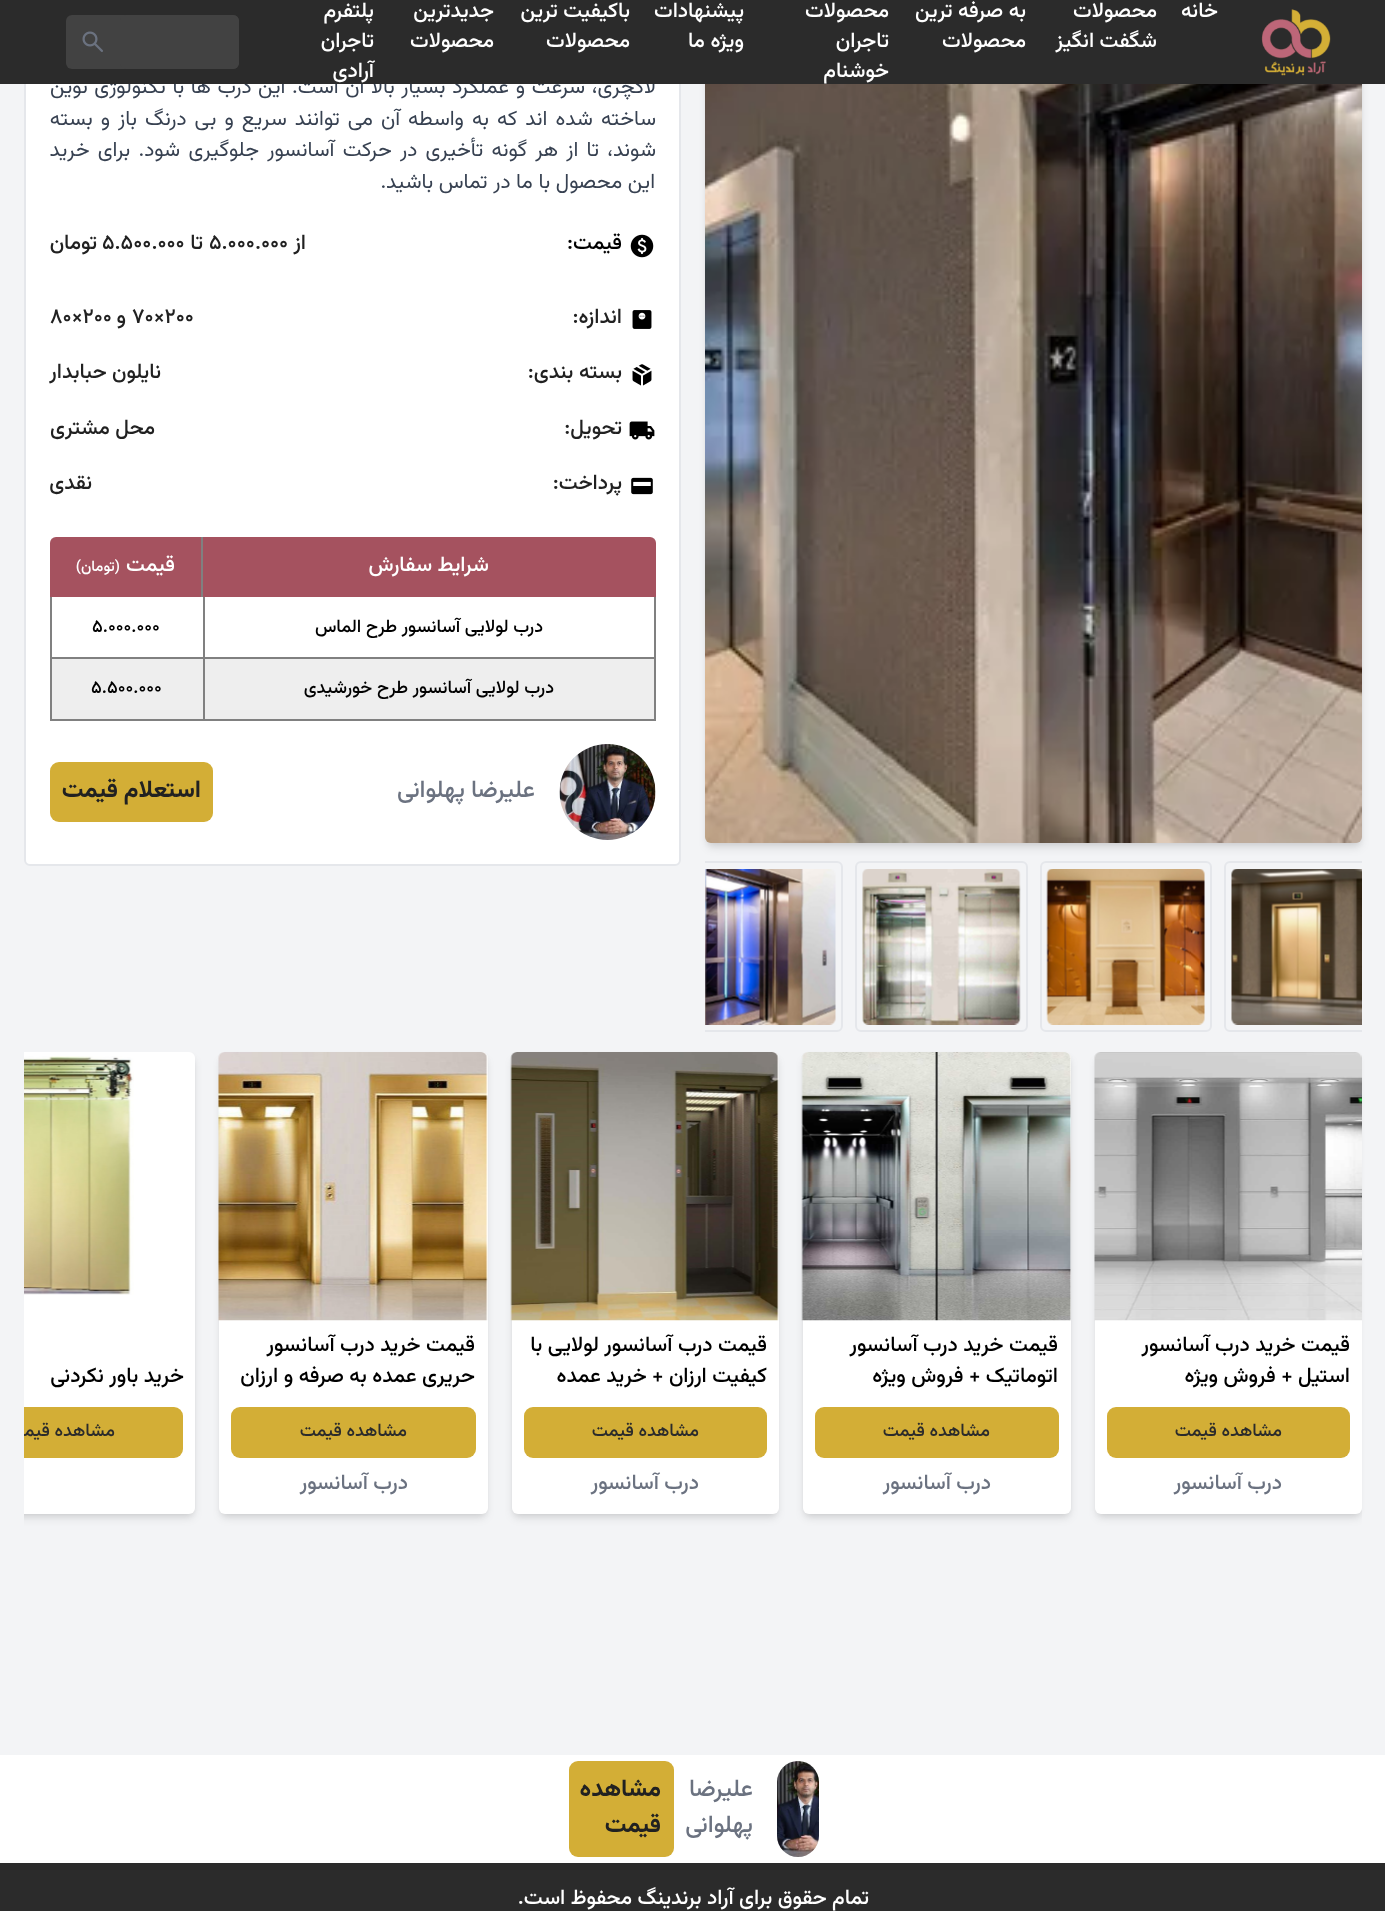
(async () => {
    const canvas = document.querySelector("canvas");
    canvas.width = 1385;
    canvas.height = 1911;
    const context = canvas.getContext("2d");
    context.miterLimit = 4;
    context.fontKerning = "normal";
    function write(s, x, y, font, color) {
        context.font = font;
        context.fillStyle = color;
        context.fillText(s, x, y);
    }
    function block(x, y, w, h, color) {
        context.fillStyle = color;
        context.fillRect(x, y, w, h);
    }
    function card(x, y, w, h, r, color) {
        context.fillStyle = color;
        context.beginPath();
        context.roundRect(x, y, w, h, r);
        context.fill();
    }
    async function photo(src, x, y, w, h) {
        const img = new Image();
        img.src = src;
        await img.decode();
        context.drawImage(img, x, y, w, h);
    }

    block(0, 0, 1385, 1911, "rgb(255, 255, 255)");
    block(0, 84, 1385, 1671, "rgb(243, 244, 246)");
    context.fillStyle = "rgba(0, 0, 0, 0.1)";
    context.filter = "blur(3px)";
    context.beginPath();
    context.roundRect(708, -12, 651, 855, 3);
    context.fill();
    context.filter = "none";
    context.filter = "blur(4.5px)";
    context.beginPath();
    context.roundRect(707, -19, 654, 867, 5);
    context.fill();
    context.filter = "none";
    context.fillStyle = "rgb(255, 255, 255)";
    context.beginPath();
    context.roundRect(25, -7, 655, 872, 5);
    context.fill();
    context.strokeStyle = "rgb(229, 231, 235)";
    context.lineWidth = 2;
    context.stroke();
    context.wordSpacing = "1px";
    context.direction = "rtl";
    write("لاکچری، سرعت و عملکرد بسیار بالا آن است. این درب ها با تکنولوژی نوین", 656, 93, "21px Vazirmatn", "rgb(55, 65, 81)");
    block(0, 0, 1385, 84, "rgb(43, 43, 43)");
    await photo("media/1.png", 1261, 9, 70, 67);
    context.wordSpacing = "0px";
    write("خانه", 1218, 17, "500 21px Vazirmatn", "rgb(255, 255, 255)");
    write("محصولات", 1157, 17, "500 21px Vazirmatn", "rgb(255, 255, 255)");
    write("شگفت انگیز", 1157, 47, "500 21px Vazirmatn", "rgb(255, 255, 255)");
    write("به صرفه ترین", 1026, 17, "500 21px Vazirmatn", "rgb(255, 255, 255)");
    write("محصولات", 1026, 47, "500 21px Vazirmatn", "rgb(255, 255, 255)");
    write("محصولات", 889, 17, "500 21px Vazirmatn", "rgb(255, 255, 255)");
    write("تاجران", 889, 47, "500 21px Vazirmatn", "rgb(255, 255, 255)");
    write("خوشنام", 889, 77, "500 21px Vazirmatn", "rgb(255, 255, 255)");
    write("پیشنهادات", 744, 17, "500 21px Vazirmatn", "rgb(255, 255, 255)");
    write("ویژه ما", 744, 47, "500 21px Vazirmatn", "rgb(255, 255, 255)");
    write("باکیفیت ترین", 630, 17, "500 21px Vazirmatn", "rgb(255, 255, 255)");
    write("محصولات", 630, 47, "500 21px Vazirmatn", "rgb(255, 255, 255)");
    write("جدیدترین", 494, 17, "500 21px Vazirmatn", "rgb(255, 255, 255)");
    write("محصولات", 494, 47, "500 21px Vazirmatn", "rgb(255, 255, 255)");
    write("پلتفرم", 374, 17, "500 21px Vazirmatn", "rgb(255, 255, 255)");
    write("تاجران", 374, 47, "500 21px Vazirmatn", "rgb(255, 255, 255)");
    write("آرادی", 374, 77, "500 21px Vazirmatn", "rgb(255, 255, 255)");
    card(66, 15, 173, 54, 6, "rgb(66, 66, 66)");
    card(120, 15, 119, 54, 6, "rgb(66, 66, 66)");
    await photo("media/2.png", 82, 31, 21, 21);
    await photo("media/3.png", 705, 84, 657, 759);
    context.save();
    context.beginPath();
    context.rect(705, 861, 657, 191);
    context.clip();
    context.beginPath();
    context.roundRect(1225, 862, 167, 169, 5);
    context.stroke();
    context.restore();
    await photo("media/4.png", 1231, 869, 131, 156);
    context.beginPath();
    context.roundRect(1041, 862, 170, 169, 5);
    context.stroke();
    await photo("media/5.png", 1046, 869, 159, 156);
    context.beginPath();
    context.roundRect(856, 862, 171, 169, 5);
    context.stroke();
    await photo("media/6.png", 862, 869, 159, 156);
    context.save();
    context.beginPath();
    context.rect(705, 861, 657, 191);
    context.clip();
    context.beginPath();
    context.roundRect(673, 862, 169, 169, 5);
    context.stroke();
    context.restore();
    await photo("media/7.png", 705, 869, 131, 156);
    context.wordSpacing = "2.4px";
    write("ساخته شده اند که به واسطه آن می توانند سریع و بی درنگ باز و بسته", 656, 125, "21px Vazirmatn", "rgb(55, 65, 81)");
    context.wordSpacing = "2.6px";
    write("شوند، تا از هر گونه تأخیری در حرکت آسانسور جلوگیری شود. برای خرید", 656, 156, "21px Vazirmatn", "rgb(55, 65, 81)");
    context.wordSpacing = "0px";
    write("این محصول با ما در تماس باشید.", 655, 188, "21px Vazirmatn", "rgb(55, 65, 81)");
    await photo("media/8.png", 630, 234, 24, 24);
    write("قیمت:", 622, 249, "500 21px Vazirmatn", "rgb(0, 0, 0)");
    write("از", 306, 249, "500 21px Vazirmatn", "rgb(33, 33, 33)");
    context.direction = "ltr";
    write("۵.۰۰۰.۰۰۰", 209, 249, "500 21px Vazirmatn", "rgb(33, 33, 33)");
    context.direction = "rtl";
    write("تا", 203, 249, "500 21px Vazirmatn", "rgb(33, 33, 33)");
    context.direction = "ltr";
    write("۵.۵۰۰.۰۰۰", 102, 249, "500 21px Vazirmatn", "rgb(33, 33, 33)");
    context.direction = "rtl";
    write("تومان", 97, 249, "500 21px Vazirmatn", "rgb(33, 33, 33)");
    await photo("media/9.png", 632, 310, 20, 19);
    write("اندازه:", 622, 323, "500 21px Vazirmatn", "rgb(33, 33, 33)");
    context.direction = "ltr";
    write("۷۰×۲۰۰", 132, 323, "500 21px Vazirmatn", "rgb(33, 33, 33)");
    context.direction = "rtl";
    write("و", 126, 323, "500 21px Vazirmatn", "rgb(33, 33, 33)");
    context.direction = "ltr";
    write("۸۰×۲۰۰", 50, 323, "500 21px Vazirmatn", "rgb(33, 33, 33)");
    await photo("media/10.png", 632, 364, 20, 22);
    context.direction = "rtl";
    write("بسته‌ بندی:", 622, 378, "500 21px Vazirmatn", "rgb(33, 33, 33)");
    write("نایلون حبابدار", 161, 378, "500 21px Vazirmatn", "rgb(33, 33, 33)");
    await photo("media/11.png", 629, 421, 26, 19);
    write("تحویل:", 622, 434, "500 21px Vazirmatn", "rgb(33, 33, 33)");
    write("محل مشتری", 155, 434, "500 21px Vazirmatn", "rgb(33, 33, 33)");
    await photo("media/12.png", 631, 477, 22, 18);
    write("پرداخت:", 622, 489, "500 21px Vazirmatn", "rgb(33, 33, 33)");
    write("نقدی", 92, 489, "500 21px Vazirmatn", "rgb(33, 33, 33)");
    context.fillStyle = "rgb(165, 82, 95)";
    context.beginPath();
    context.roundRect(203, 537, 453, 60, [0, 6, 0, 0]);
    context.fill();
    block(201, 537, 2, 60, "rgb(128, 128, 128)");
    write("شرایط سفارش", 489, 571, "500 21px Vazirmatn", "rgb(255, 255, 255)");
    context.fillStyle = "rgb(165, 82, 95)";
    context.beginPath();
    context.roundRect(50, 537, 151, 60, [6, 0, 0, 0]);
    context.fill();
    write("قیمت", 175, 571, "500 21px Vazirmatn", "rgb(255, 255, 255)");
    write("(تومان)", 120, 571, "500 15px Vazirmatn", "rgb(255, 255, 255)");
    block(654, 597, 2, 123, "rgb(128, 128, 128)");
    block(50, 657, 606, 2, "rgb(128, 128, 128)");
    block(50, 597, 2, 62, "rgb(128, 128, 128)");
    block(203, 597, 2, 60, "rgb(128, 128, 128)");
    write("درب لولایی آسانسور طرح الماس", 543, 632, "500 18px Vazirmatn", "rgb(0, 0, 0)");
    context.direction = "ltr";
    write("۵.۰۰۰.۰۰۰", 92, 632, "500 18px Vazirmatn", "rgb(0, 0, 0)");
    block(52, 659, 602, 60, "rgb(238, 238, 238)");
    block(50, 719, 606, 2, "rgb(128, 128, 128)");
    block(50, 659, 2, 61, "rgb(128, 128, 128)");
    block(203, 659, 2, 60, "rgb(128, 128, 128)");
    context.direction = "rtl";
    write("درب لولایی آسانسور طرح خورشیدی", 554, 693, "500 18px Vazirmatn", "rgb(0, 0, 0)");
    context.direction = "ltr";
    write("۵.۵۰۰.۰۰۰", 91, 693, "500 18px Vazirmatn", "rgb(0, 0, 0)");
    await photo("media/13.png", 559, 744, 97, 96);
    context.direction = "rtl";
    write("علیرضا پهلوانی", 535, 797, "500 24px Vazirmatn", "rgb(107, 114, 128)");
    card(50, 762, 163, 60, 9, "rgb(211, 174, 54)");
    write("استعلام قیمت", 201, 797, "bold 24px Vazirmatn", "rgb(33, 33, 33)");
    context.fillStyle = "rgba(0, 0, 0, 0.1)";
    context.filter = "blur(3px)";
    context.beginPath();
    context.roundRect(1098, 1058, 261, 456, 3);
    context.fill();
    context.filter = "none";
    context.save();
    context.beginPath();
    context.rect(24, 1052, 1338, 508);
    context.clip();
    context.filter = "blur(4.5px)";
    context.beginPath();
    context.roundRect(1097, 1059, 264, 459, 5);
    context.fill();
    context.filter = "none";
    context.restore();
    card(1095, 1052, 267, 462, 6, "rgb(255, 255, 255)");
    await photo("media/14.png", 1094, 1052, 268, 269);
    write("قیمت خرید درب آسانسور", 1350, 1351, "500 21px Vazirmatn", "rgb(0, 0, 0)");
    write("استیل + فروش ویژه", 1350, 1382, "500 21px Vazirmatn", "rgb(0, 0, 0)");
    card(1107, 1407, 243, 51, 9, "rgb(211, 174, 54)");
    write("مشاهده قیمت", 1282, 1436, "500 18px Vazirmatn", "rgb(43, 43, 43)");
    write("درب آسانسور", 1282, 1489, "500 21px Vazirmatn", "rgb(107, 114, 128)");
    context.fillStyle = "rgba(0, 0, 0, 0.1)";
    context.filter = "blur(3px)";
    context.beginPath();
    context.roundRect(806, 1058, 262, 456, 3);
    context.fill();
    context.filter = "none";
    context.filter = "blur(4.5px)";
    context.beginPath();
    context.roundRect(804, 1059, 266, 459, 5);
    context.fill();
    context.filter = "none";
    card(803, 1052, 268, 462, 6, "rgb(255, 255, 255)");
    await photo("media/15.png", 801, 1052, 270, 269);
    write("قیمت خرید درب آسانسور", 1058, 1351, "500 21px Vazirmatn", "rgb(0, 0, 0)");
    write("اتوماتیک + فروش ویژه", 1058, 1382, "500 21px Vazirmatn", "rgb(0, 0, 0)");
    card(815, 1407, 244, 51, 9, "rgb(211, 174, 54)");
    write("مشاهده قیمت", 990, 1436, "500 18px Vazirmatn", "rgb(43, 43, 43)");
    write("درب آسانسور", 991, 1489, "500 21px Vazirmatn", "rgb(107, 114, 128)");
    context.fillStyle = "rgba(0, 0, 0, 0.1)";
    context.filter = "blur(3px)";
    context.beginPath();
    context.roundRect(515, 1058, 261, 456, 3);
    context.fill();
    context.filter = "none";
    context.filter = "blur(4.5px)";
    context.beginPath();
    context.roundRect(513, 1059, 264, 459, 5);
    context.fill();
    context.filter = "none";
    card(512, 1052, 267, 462, 6, "rgb(255, 255, 255)");
    await photo("media/16.png", 510, 1052, 269, 269);
    write("قیمت درب آسانسور لولایی با", 767, 1351, "500 21px Vazirmatn", "rgb(0, 0, 0)");
    write("کیفیت ارزان + خرید عمده", 767, 1382, "500 21px Vazirmatn", "rgb(0, 0, 0)");
    card(524, 1407, 243, 51, 9, "rgb(211, 174, 54)");
    write("مشاهده قیمت", 699, 1436, "500 18px Vazirmatn", "rgb(43, 43, 43)");
    write("درب آسانسور", 699, 1489, "500 21px Vazirmatn", "rgb(107, 114, 128)");
    context.fillStyle = "rgba(0, 0, 0, 0.1)";
    context.filter = "blur(3px)";
    context.beginPath();
    context.roundRect(222, 1058, 263, 456, 3);
    context.fill();
    context.filter = "none";
    context.filter = "blur(4.5px)";
    context.beginPath();
    context.roundRect(221, 1059, 265, 459, 5);
    context.fill();
    context.filter = "none";
    card(219, 1052, 269, 462, 6, "rgb(255, 255, 255)");
    await photo("media/17.png", 218, 1052, 270, 269);
    write("قیمت خرید درب آسانسور", 475, 1351, "500 21px Vazirmatn", "rgb(0, 0, 0)");
    write("حریری عمده به صرفه و ارزان", 475, 1382, "500 21px Vazirmatn", "rgb(0, 0, 0)");
    card(231, 1407, 245, 51, 9, "rgb(211, 174, 54)");
    write("مشاهده قیمت", 407, 1436, "500 18px Vazirmatn", "rgb(43, 43, 43)");
    write("درب آسانسور", 408, 1489, "500 21px Vazirmatn", "rgb(107, 114, 128)");
    context.save();
    context.beginPath();
    context.rect(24, 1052, 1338, 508);
    context.clip();
    context.fillStyle = "rgba(0, 0, 0, 0.1)";
    context.filter = "blur(3px)";
    context.beginPath();
    context.roundRect(-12, 1058, 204, 456, 3);
    context.fill();
    context.filter = "none";
    context.filter = "blur(4.5px)";
    context.beginPath();
    context.roundRect(-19, 1059, 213, 459, 5);
    context.fill();
    context.filter = "none";
    context.restore();
    context.fillStyle = "rgb(255, 255, 255)";
    context.beginPath();
    context.roundRect(24, 1052, 171, 462, [0, 6, 6, 0]);
    context.fill();
    await photo("media/18.png", 24, 1056, 110, 239);
    write("خرید باور نکردنی", 184, 1382, "500 21px Vazirmatn", "rgb(0, 0, 0)");
    context.fillStyle = "rgb(211, 174, 54)";
    context.beginPath();
    context.roundRect(24, 1407, 159, 51, [0, 9, 9, 0]);
    context.fill();
    context.save();
    context.beginPath();
    context.rect(24, 1052, 1338, 508);
    context.clip();
    write("مشاهده قیمت", 115, 1436, "500 18px Vazirmatn", "rgb(43, 43, 43)");
    context.restore();
    await photo("media/19.png", 777, 1761, 42, 96);
    write("علیرضا", 753, 1796, "500 24px Vazirmatn", "rgb(107, 114, 128)");
    write("پهلوانی", 753, 1832, "500 24px Vazirmatn", "rgb(107, 114, 128)");
    card(569, 1761, 105, 96, 9, "rgb(211, 174, 54)");
    write("مشاهده", 661, 1796, "bold 24px Vazirmatn", "rgb(33, 33, 33)");
    write("قیمت", 661, 1832, "bold 24px Vazirmatn", "rgb(33, 33, 33)");
    block(0, 1863, 1385, 48, "rgb(43, 43, 43)");
    write("تمام حقوق برای آراد برندینگ محفوظ است.", 869, 1904, "500 21px Vazirmatn", "rgb(255, 255, 255)");
})();
